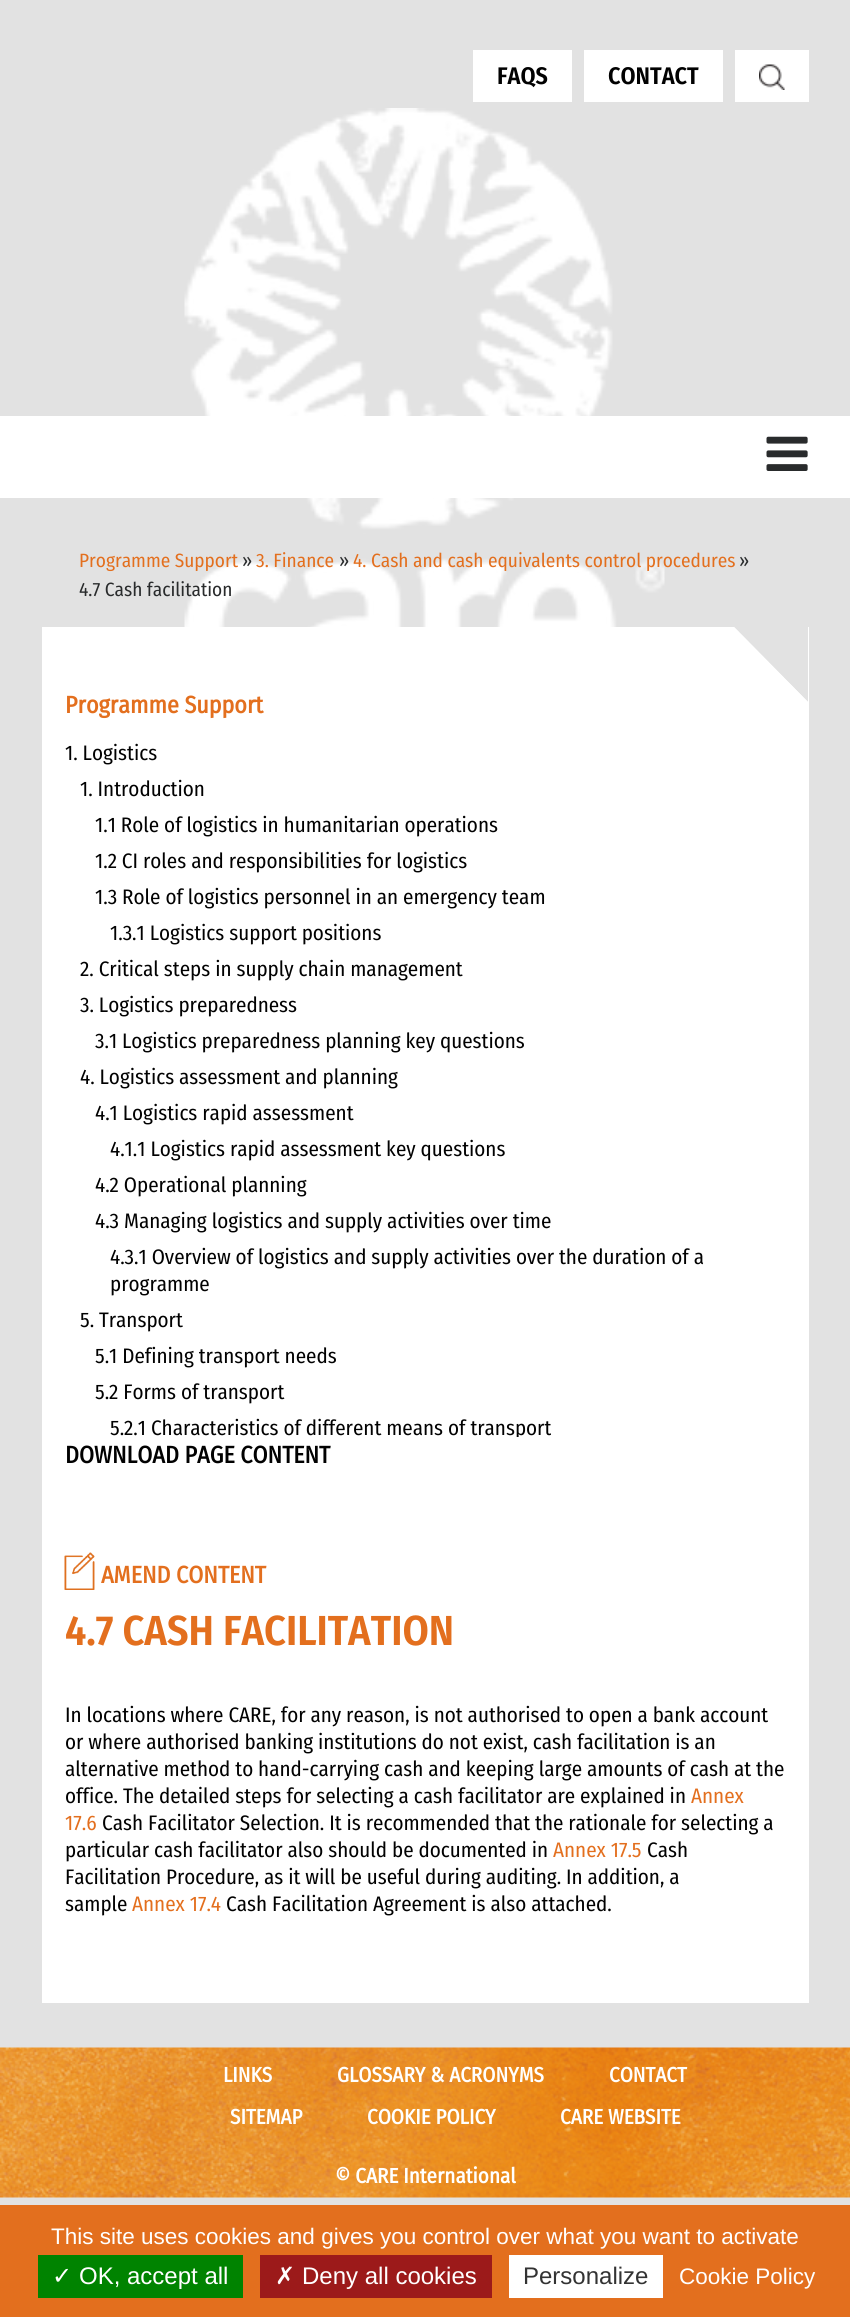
#include <cairo/cairo.h>
#include <math.h>
#include <stddef.h>

static cairo_t *cr;

static void use_color(int r, int g, int b) {
  cairo_set_source_rgb(cr, r / 255.0, g / 255.0, b / 255.0);
}

static void text(double x, double y, const char *s, const char *family, double size, int italic, int bold, int r, int g, int b) {
  cairo_select_font_face(cr, family, italic ? CAIRO_FONT_SLANT_ITALIC : CAIRO_FONT_SLANT_NORMAL,
    bold ? CAIRO_FONT_WEIGHT_BOLD : CAIRO_FONT_WEIGHT_NORMAL);
  cairo_set_font_size(cr, size);
  use_color(r, g, b);
  cairo_move_to(cr, x, y);
  cairo_show_text(cr, s);
}

static void box(double x, double y, double w, double h, int r, int g, int b) {
  use_color(r, g, b);
  cairo_rectangle(cr, x, y, w, h);
  cairo_fill(cr);
}

static void picture(const char *path, double x, double y, double w, double h) {
  cairo_surface_t *image = cairo_image_surface_create_from_png(path);
  cairo_save(cr);
  cairo_set_source_surface(cr, image, x, y);
  cairo_rectangle(cr, x, y, w, h);
  cairo_fill(cr);
  cairo_restore(cr);
  cairo_surface_destroy(image);
}

static void draw(void) {
  use_color(226, 226, 226);
  cairo_paint(cr);
  box(473, 50, 99, 52, 255, 255, 255);
  box(584, 50, 139, 52, 255, 255, 255);
  box(735, 50, 74, 52, 255, 255, 255);
  picture("img_01.png", 759, 64, 26, 26);
  box(0, 416, 850, 82, 255, 255, 255);
  picture("img_02.png", 184, 108, 481, 519);
  picture("img_03.png", 766, 436, 42, 35);
  box(42, 627, 767, 1376, 255, 255, 255);
  use_color(226, 226, 226);
  cairo_new_path(cr);
  cairo_move_to(cr, 808, 627);
  cairo_line_to(cr, 808, 702);
  cairo_line_to(cr, 734, 627);
  cairo_close_path(cr);
  cairo_fill(cr);
  use_color(255, 255, 255);
  cairo_new_path(cr);
  cairo_move_to(cr, 808, 702);
  cairo_line_to(cr, 734, 702);
  cairo_line_to(cr, 734, 627);
  cairo_close_path(cr);
  cairo_fill(cr);
  picture("img_04.png", 64, 1552, 31, 38);
  picture("img_05.png", 0, 2047, 850, 151);
  box(0, 2205, 850, 112, 227, 111, 30);
  box(38, 2255, 205, 43, 0, 131, 0);
  box(260, 2255, 232, 43, 156, 26, 26);
  box(509, 2255, 154, 43, 255, 255, 255);
  text(497, 84, "FAQS", "Fira Sans Condensed SemiBold", 24, 0, 0, 1, 1, 1);
  text(608, 84, "CONTACT", "Fira Sans Condensed SemiBold", 24, 0, 0, 1, 1, 1);
  text(79, 567, "Programme Support", "Fira Sans Condensed", 19.25, 0, 0, 227, 111, 30);
  text(242, 567, "»", "Fira Sans Condensed", 19.25, 0, 0, 41, 43, 44);
  text(256, 567, "3. Finance", "Fira Sans Condensed", 19.25, 0, 0, 227, 111, 30);
  text(339, 567, "»", "Fira Sans Condensed", 19.25, 0, 0, 41, 43, 44);
  text(353, 567, "4. Cash and cash equivalents control procedures", "Fira Sans Condensed", 19.25, 0, 0, 227, 111, 30);
  text(739, 567, "»", "Fira Sans Condensed", 19.25, 0, 0, 41, 43, 44);
  text(79, 596, "4.7 Cash facilitation", "Fira Sans Condensed", 19.25, 0, 0, 41, 43, 44);
  text(65, 713, "Programme Support", "Fira Sans Condensed", 24, 0, 1, 227, 111, 30);
  text(65, 760, "1. Logistics", "Fira Sans Condensed", 21, 0, 0, 1, 1, 1);
  text(80, 796, "1. Introduction", "Fira Sans Condensed", 21, 0, 0, 1, 1, 1);
  text(95, 832, "1.1 Role of logistics in humanitarian operations", "Fira Sans Condensed", 21, 0, 0, 1, 1, 1);
  text(95, 868, "1.2 CI roles and responsibilities for logistics", "Fira Sans Condensed", 21, 0, 0, 1, 1, 1);
  text(95, 904, "1.3 Role of logistics personnel in an emergency team", "Fira Sans Condensed", 21, 0, 0, 1, 1, 1);
  text(110, 940, "1.3.1 Logistics support positions", "Fira Sans Condensed", 21, 0, 0, 1, 1, 1);
  text(80, 976, "2. Critical steps in supply chain management", "Fira Sans Condensed", 21, 0, 0, 1, 1, 1);
  text(80, 1012, "3. Logistics preparedness", "Fira Sans Condensed", 21, 0, 0, 1, 1, 1);
  text(95, 1048, "3.1 Logistics preparedness planning key questions", "Fira Sans Condensed", 21, 0, 0, 1, 1, 1);
  text(80, 1084, "4. Logistics assessment and planning", "Fira Sans Condensed", 21, 0, 0, 1, 1, 1);
  text(95, 1120, "4.1 Logistics rapid assessment", "Fira Sans Condensed", 21, 0, 0, 1, 1, 1);
  text(110, 1156, "4.1.1 Logistics rapid assessment key questions", "Fira Sans Condensed", 21, 0, 0, 1, 1, 1);
  text(95, 1192, "4.2 Operational planning", "Fira Sans Condensed", 21, 0, 0, 1, 1, 1);
  text(95, 1228, "4.3 Managing logistics and supply activities over time", "Fira Sans Condensed", 21, 0, 0, 1, 1, 1);
  text(110, 1264, "4.3.1 Overview of logistics and supply activities over the duration of a", "Fira Sans Condensed", 21, 0, 0, 1, 1, 1);
  text(110, 1291, "programme", "Fira Sans Condensed", 21, 0, 0, 1, 1, 1);
  text(80, 1327, "5. Transport", "Fira Sans Condensed", 21, 0, 0, 1, 1, 1);
  text(95, 1363, "5.1 Defining transport needs", "Fira Sans Condensed", 21, 0, 0, 1, 1, 1);
  text(95, 1399, "5.2 Forms of transport", "Fira Sans Condensed", 21, 0, 0, 1, 1, 1);
  cairo_save(cr);
  cairo_rectangle(cr, 65, 687, 721, 750);
  cairo_clip(cr);
  text(110, 1435, "5.2.1 Characteristics of different means of transport", "Fira Sans Condensed", 21, 0, 0, 1, 1, 1);
  cairo_restore(cr);
  text(65, 1463, "DOWNLOAD PAGE CONTENT", "Fira Sans Condensed", 24, 0, 1, 1, 1, 1);
  text(101, 1583, "AMEND CONTENT", "Fira Sans Condensed", 24, 0, 1, 227, 111, 30);
  text(65, 1645, "4.7 CASH FACILITATION", "Fira Sans Condensed SemiBold", 42, 0, 0, 227, 111, 30);
  text(65, 1722, "In locations where CARE, for any reason, is not authorised to open a bank account", "Fira Sans Condensed", 21, 0, 0, 1, 1, 1);
  text(65, 1749, "or where authorised banking institutions do not exist, cash facilitation is an", "Fira Sans Condensed", 21, 0, 0, 1, 1, 1);
  text(65, 1776, "alternative method to hand-carrying cash and keeping large amounts of cash at the", "Fira Sans Condensed", 21, 0, 0, 1, 1, 1);
  text(65, 1803, "office. The detailed steps for selecting a cash facilitator are explained in", "Fira Sans Condensed", 21, 0, 0, 1, 1, 1);
  text(691, 1803, "Annex", "Fira Sans Condensed", 21, 0, 0, 227, 111, 30);
  text(65, 1830, "17.6", "Fira Sans Condensed", 21, 0, 0, 227, 111, 30);
  text(102, 1830, "Cash Facilitator Selection. It is recommended that the rationale for selecting a", "Fira Sans Condensed", 21, 0, 0, 1, 1, 1);
  text(65, 1857, "particular cash facilitator also should be documented in", "Fira Sans Condensed", 21, 0, 0, 1, 1, 1);
  text(553, 1857, "Annex 17.5", "Fira Sans Condensed", 21, 0, 0, 227, 111, 30);
  text(647, 1857, "Cash", "Fira Sans Condensed", 21, 0, 0, 1, 1, 1);
  text(65, 1884, "Facilitation Procedure, as it will be useful during auditing. In addition, a", "Fira Sans Condensed", 21, 0, 0, 1, 1, 1);
  text(65, 1911, "sample", "Fira Sans Condensed", 21, 0, 0, 1, 1, 1);
  text(132, 1911, "Annex 17.4", "Fira Sans Condensed", 21, 0, 0, 227, 111, 30);
  text(226, 1911, "Cash Facilitation Agreement is also attached.", "Fira Sans Condensed", 21, 0, 0, 1, 1, 1);
  text(223, 2082, "LINKS", "Fira Sans Condensed", 21, 0, 1, 255, 255, 255);
  text(337, 2082, "GLOSSARY & ACRONYMS", "Fira Sans Condensed", 21, 0, 1, 255, 255, 255);
  text(609, 2082, "CONTACT", "Fira Sans Condensed", 21, 0, 1, 255, 255, 255);
  text(230, 2124, "SITEMAP", "Fira Sans Condensed", 21, 0, 1, 255, 255, 255);
  text(367, 2124, "COOKIE POLICY", "Fira Sans Condensed", 21, 0, 1, 255, 255, 255);
  text(560, 2124, "CARE WEBSITE", "Fira Sans Condensed", 21, 0, 1, 255, 255, 255);
  text(335, 2183, "© CARE International", "Fira Sans Condensed", 21, 0, 1, 255, 255, 255);
  text(51, 2244, "This site uses cookies and gives you control over what you want to activate", "Liberation Sans", 22.5, 0, 0, 255, 255, 255);
  text(52, 2284, "✓", "DejaVu Sans", 24, 0, 0, 255, 255, 255);
  text(79, 2284, "OK, accept all", "Liberation Sans", 24, 0, 0, 255, 255, 255);
  text(275, 2284, "✗", "DejaVu Sans", 24, 0, 0, 255, 255, 255);
  text(302, 2284, "Deny all cookies", "Liberation Sans", 24, 0, 0, 255, 255, 255);
  text(523, 2284, "Personalize", "Liberation Sans", 24, 0, 0, 51, 51, 51);
  text(679, 2284, "Cookie Policy", "Liberation Sans", 22.5, 0, 0, 255, 255, 255);
}

int main(void) {
  cairo_surface_t *surface = cairo_image_surface_create(CAIRO_FORMAT_RGB24, 850, 2317);
  cr = cairo_create(surface);
  cairo_font_options_t *options = cairo_font_options_create();
  cairo_font_options_set_hint_metrics(options, CAIRO_HINT_METRICS_OFF);
  cairo_font_options_set_hint_style(options, CAIRO_HINT_STYLE_NONE);
  cairo_set_font_options(cr, options);
  cairo_set_miter_limit(cr, 4);
  draw();
  cairo_surface_write_to_png(surface, "out.png");
  cairo_font_options_destroy(options);
  cairo_destroy(cr);
  cairo_surface_destroy(surface);
  return 0;
}
